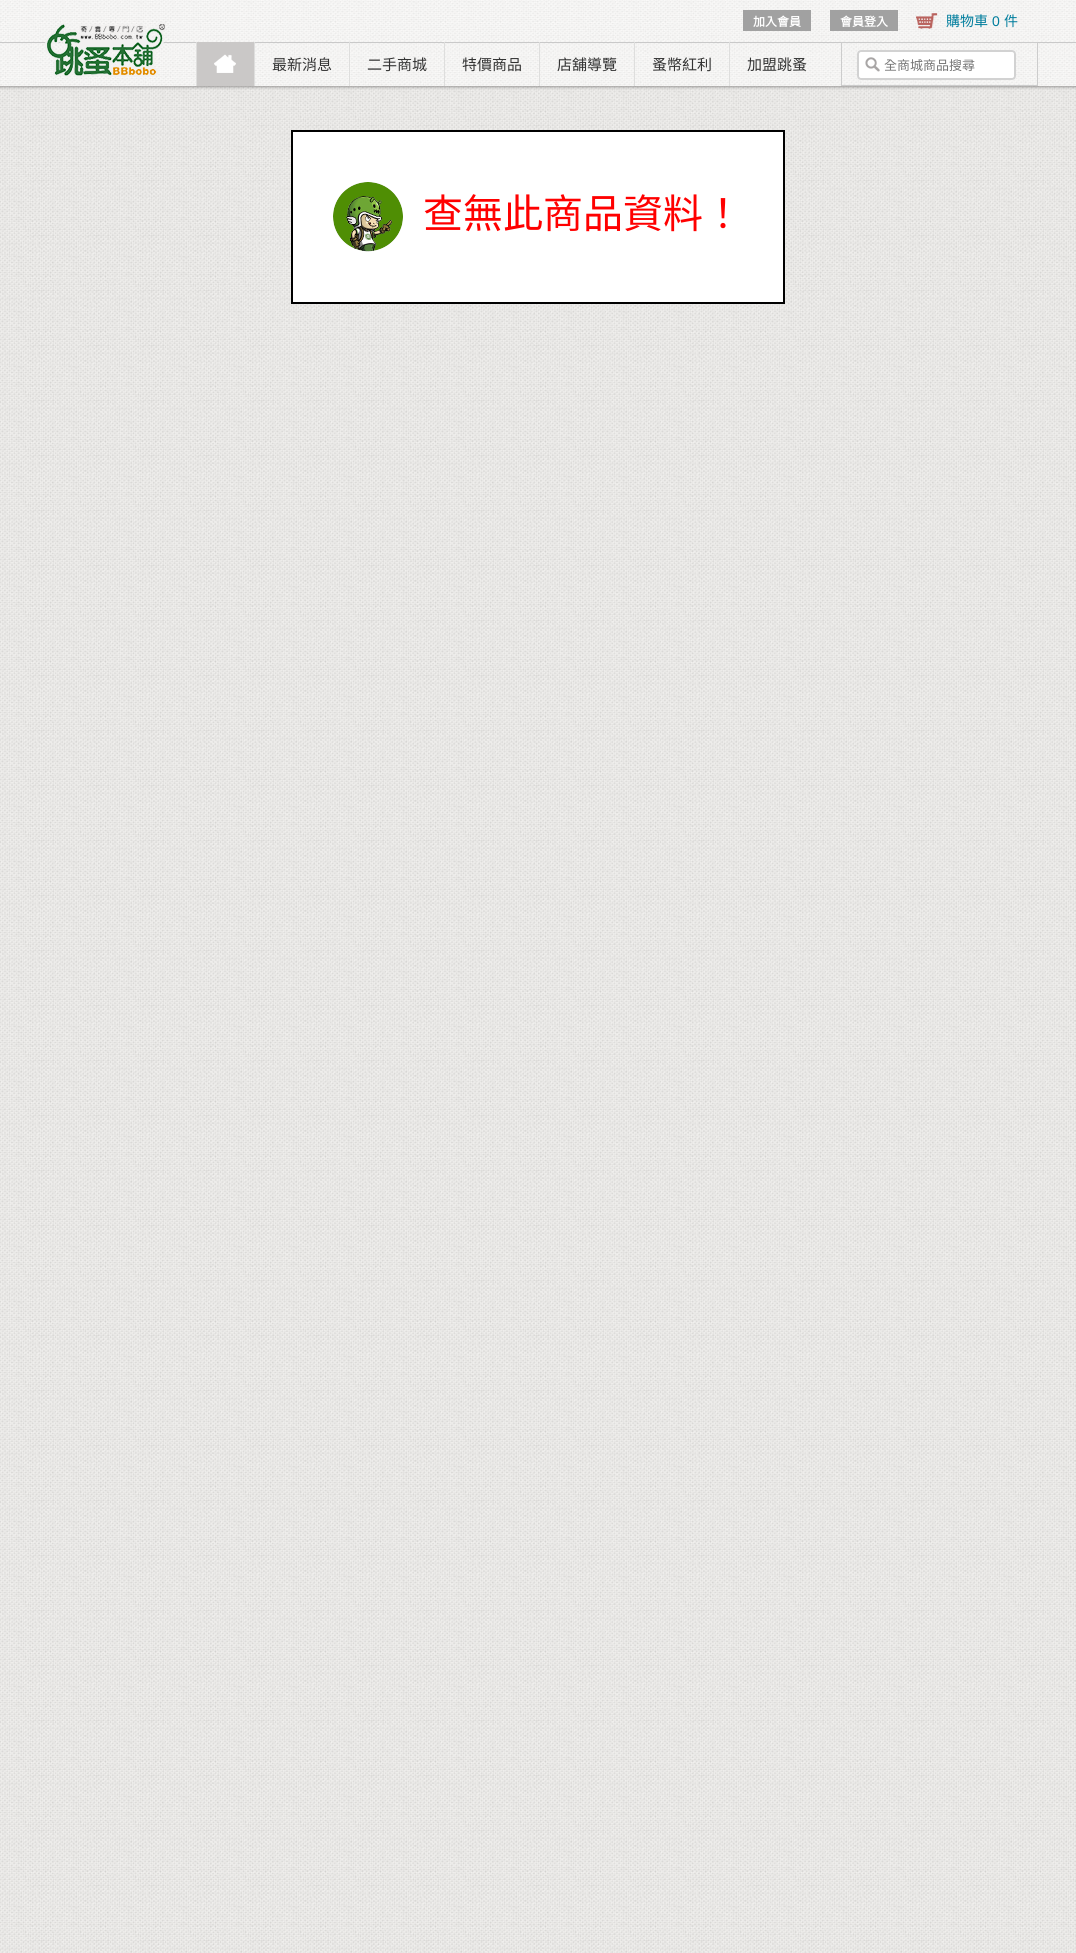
#include <cairo/cairo.h>
#include <math.h>
#include <stddef.h>

static cairo_t *cr;

static void use_color(int r, int g, int b) {
  cairo_set_source_rgb(cr, r / 255.0, g / 255.0, b / 255.0);
}

static void text(double x, double y, const char *s, const char *family, double size, int italic, int bold, int r, int g, int b) {
  cairo_select_font_face(cr, family, italic ? CAIRO_FONT_SLANT_ITALIC : CAIRO_FONT_SLANT_NORMAL,
    bold ? CAIRO_FONT_WEIGHT_BOLD : CAIRO_FONT_WEIGHT_NORMAL);
  cairo_set_font_size(cr, size);
  use_color(r, g, b);
  cairo_move_to(cr, x, y);
  cairo_show_text(cr, s);
}

static void box(double x, double y, double w, double h, int r, int g, int b) {
  use_color(r, g, b);
  cairo_rectangle(cr, x, y, w, h);
  cairo_fill(cr);
}

static void round_rect(double x, double y, double w, double h, double r) {
  cairo_new_sub_path(cr);
  cairo_arc(cr, x + w - r, y + h - r, r, 0, M_PI / 2);
  cairo_arc(cr, x + r, y + h - r, r, M_PI / 2, M_PI);
  cairo_arc(cr, x + r, y + r, r, M_PI, 1.5 * M_PI);
  cairo_arc(cr, x + w - r, y + r, r, 1.5 * M_PI, 2 * M_PI);
  cairo_close_path(cr);
}

static void picture(const char *path, double x, double y, double w, double h) {
  cairo_surface_t *image = cairo_image_surface_create_from_png(path);
  cairo_save(cr);
  cairo_set_source_surface(cr, image, x, y);
  cairo_rectangle(cr, x, y, w, h);
  cairo_fill(cr);
  cairo_restore(cr);
  cairo_surface_destroy(image);
}

static void draw(void) {
  use_color(255, 255, 255);
  cairo_paint(cr);
  picture("img_01.png", 0, 86, 1076, 1867);
  picture("img_02.png", 0, 0, 1076, 90);
  picture("img_03.png", 45, 22, 121, 56);
  picture("img_04.png", 197, 42, 57, 44);
  box(196, 42, 1, 44, 222, 222, 221);
  box(254, 42, 1, 44, 222, 222, 221);
  box(349, 42, 1, 44, 222, 222, 221);
  box(444, 42, 1, 44, 222, 222, 221);
  box(539, 42, 1, 44, 222, 222, 221);
  box(634, 42, 1, 44, 222, 222, 221);
  box(729, 42, 1, 44, 222, 222, 221);
  box(743, 10, 68, 21, 161, 161, 161);
  box(830, 10, 68, 21, 161, 161, 161);
  picture("img_05.png", 916, 13, 22, 16);
  cairo_rectangle(cr, 841.5, 42.5, 196, 43);
  use_color(204, 204, 204);
  cairo_set_line_width(cr, 1);
  cairo_stroke(cr);
  use_color(255, 255, 255);
  round_rect(857, 50, 159, 30, 4);
  cairo_fill(cr);
  picture("img_06.png", 865, 57, 15, 15);
  round_rect(858, 51, 157, 28, 3);
  use_color(210, 210, 210);
  cairo_set_line_width(cr, 2);
  cairo_stroke(cr);
  use_color(255, 255, 255);
  cairo_rectangle(cr, 292, 131, 492, 172);
  cairo_fill_preserve(cr);
  use_color(0, 0, 0);
  cairo_stroke(cr);
  picture("img_07.png", 333, 182, 70, 70);
  text(272, 70, "最新消息", "Noto Sans CJK TC", 15, 0, 0, 51, 51, 51);
  text(367, 70, "二手商城", "Noto Sans CJK TC", 15, 0, 0, 51, 51, 51);
  text(462, 70, "特價商品", "Noto Sans CJK TC", 15, 0, 0, 51, 51, 51);
  text(557, 70, "店舖導覽", "Noto Sans CJK TC", 15, 0, 0, 51, 51, 51);
  text(652, 70, "蚤幣紅利", "Noto Sans CJK TC", 15, 0, 0, 51, 51, 51);
  text(747, 70, "加盟跳蚤", "Noto Sans CJK TC", 15, 0, 0, 51, 51, 51);
  text(753, 26, "加入會員", "Noto Sans CJK TC", 12, 0, 1, 255, 255, 255);
  text(840, 26, "會員登入", "Noto Sans CJK TC", 12, 0, 1, 255, 255, 255);
  text(946, 26, "購物車", "Noto Sans CJK TC", 14, 0, 0, 0, 125, 157);
  text(992, 26, "0", "Liberation Sans", 14, 0, 0, 0, 125, 157);
  text(1004, 26, "件", "Noto Sans CJK TC", 14, 0, 0, 0, 125, 157);
  text(884, 70, "全商城商品搜尋", "Noto Sans CJK TC", 13, 0, 0, 117, 117, 117);
  text(423, 228, "查無此商品資料！", "Noto Sans CJK TC", 40, 0, 0, 255, 0, 0);
}

int main(void) {
  cairo_surface_t *surface = cairo_image_surface_create(CAIRO_FORMAT_RGB24, 1076, 1953);
  cr = cairo_create(surface);
  cairo_font_options_t *options = cairo_font_options_create();
  cairo_font_options_set_hint_metrics(options, CAIRO_HINT_METRICS_OFF);
  cairo_font_options_set_hint_style(options, CAIRO_HINT_STYLE_NONE);
  cairo_set_font_options(cr, options);
  cairo_set_miter_limit(cr, 4);
  draw();
  cairo_surface_write_to_png(surface, "out.png");
  cairo_font_options_destroy(options);
  cairo_destroy(cr);
  cairo_surface_destroy(surface);
  return 0;
}
